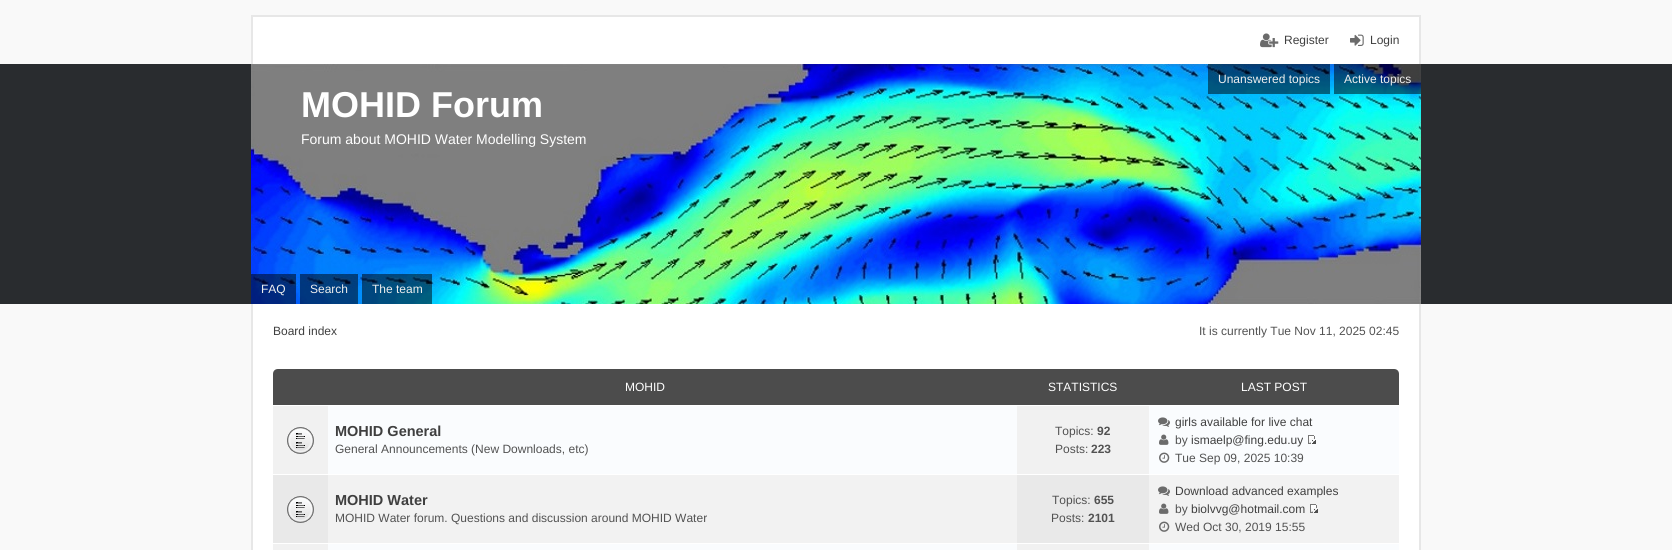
#include <cairo/cairo.h>
#include <math.h>
#include <stddef.h>

static cairo_t *cr;

static void use_color(int r, int g, int b) {
  cairo_set_source_rgb(cr, r / 255.0, g / 255.0, b / 255.0);
}

static void text(double x, double y, const char *s, const char *family, double size, int italic, int bold, int r, int g, int b) {
  cairo_select_font_face(cr, family, italic ? CAIRO_FONT_SLANT_ITALIC : CAIRO_FONT_SLANT_NORMAL,
    bold ? CAIRO_FONT_WEIGHT_BOLD : CAIRO_FONT_WEIGHT_NORMAL);
  cairo_set_font_size(cr, size);
  use_color(r, g, b);
  cairo_move_to(cr, x, y);
  cairo_show_text(cr, s);
}

static void box(double x, double y, double w, double h, int r, int g, int b) {
  use_color(r, g, b);
  cairo_rectangle(cr, x, y, w, h);
  cairo_fill(cr);
}

static void picture(const char *path, double x, double y, double w, double h) {
  cairo_surface_t *image = cairo_image_surface_create_from_png(path);
  cairo_save(cr);
  cairo_set_source_surface(cr, image, x, y);
  cairo_rectangle(cr, x, y, w, h);
  cairo_fill(cr);
  cairo_restore(cr);
  cairo_surface_destroy(image);
}

static void draw(void) {
  use_color(249, 249, 249);
  cairo_paint(cr);
  box(253, 17, 1166, 47, 255, 255, 255);
  box(251, 15, 1170, 2, 231, 231, 231);
  box(1419, 15, 2, 49, 231, 231, 231);
  box(251, 15, 2, 49, 231, 231, 231);
  picture("img_01.png", 1260, 33, 19, 15);
  picture("img_02.png", 1350, 34, 14, 12);
  box(0, 64, 1672, 240, 41, 44, 47);
  picture("img_03.png", 251, 64, 1170, 240);
  cairo_set_source_rgba(cr, 0, 0, 0, 0.5);
  cairo_rectangle(cr, 1208, 64, 122, 30);
  cairo_fill(cr);
  cairo_rectangle(cr, 1334, 64, 87, 30);
  cairo_fill(cr);
  cairo_rectangle(cr, 251, 274, 45, 30);
  cairo_fill(cr);
  cairo_rectangle(cr, 300, 274, 58, 30);
  cairo_fill(cr);
  cairo_rectangle(cr, 362, 274, 70, 30);
  cairo_fill(cr);
  box(253, 304, 1166, 246, 255, 255, 255);
  box(1419, 304, 2, 246, 231, 231, 231);
  box(251, 304, 2, 246, 231, 231, 231);
  use_color(76, 76, 76);
  cairo_new_path(cr);
  cairo_move_to(cr, 278, 369);
  cairo_line_to(cr, 1394, 369);
  cairo_curve_to(cr, 1397, 369, 1399, 371, 1399, 374);
  cairo_line_to(cr, 1399, 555);
  cairo_line_to(cr, 273, 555);
  cairo_line_to(cr, 273, 374);
  cairo_curve_to(cr, 273, 371, 275, 369, 278, 369);
  cairo_close_path(cr);
  cairo_fill(cr);
  box(328, 406, 1071, 144, 250, 252, 254);
  box(273, 405, 1126, 1, 255, 255, 255);
  box(273, 406, 55, 68, 241, 241, 241);
  picture("img_04.png", 287, 427, 27, 27);
  box(1017, 406, 132, 68, 241, 241, 241);
  picture("img_05.png", 1158, 417, 12, 10);
  picture("img_06.png", 1159, 434, 10, 11);
  picture("img_07.png", 1308, 435, 8, 9);
  picture("img_08.png", 1159, 452, 11, 11);
  box(328, 475, 1071, 68, 242, 242, 242);
  box(273, 474, 1126, 1, 255, 255, 255);
  box(273, 475, 55, 68, 233, 233, 233);
  picture("img_09.png", 287, 496, 27, 27);
  box(1017, 475, 132, 68, 233, 233, 233);
  picture("img_10.png", 1158, 486, 12, 10);
  picture("img_11.png", 1159, 503, 10, 11);
  picture("img_12.png", 1310, 504, 8, 9);
  picture("img_13.png", 1159, 521, 11, 11);
  box(273, 543, 1126, 1, 255, 255, 255);
  box(273, 544, 55, 6, 241, 241, 241);
  box(1017, 544, 132, 6, 241, 241, 241);
  text(1284, 44, "Register", "Liberation Sans", 12, 0, 0, 63, 63, 63);
  text(1370, 44, "Login", "Liberation Sans", 12, 0, 0, 63, 63, 63);
  text(1218, 83, "Unanswered topics", "Liberation Sans", 12, 0, 0, 238, 238, 238);
  text(1344, 83, "Active topics", "Liberation Sans", 12, 0, 0, 238, 238, 238);
  text(261, 293, "FAQ", "Liberation Sans", 12, 0, 0, 238, 238, 238);
  text(310, 293, "Search", "Liberation Sans", 12, 0, 0, 238, 238, 238);
  text(372, 293, "The team", "Liberation Sans", 12, 0, 0, 238, 238, 238);
  text(301, 117, "MOHID Forum", "Liberation Sans", 36, 0, 1, 255, 255, 255);
  text(301, 144, "Forum about MOHID Water Modelling System", "Liberation Sans", 14, 0, 0, 255, 255, 255);
  text(273, 335, "Board index", "Liberation Sans", 12, 0, 0, 63, 63, 63);
  text(1199, 335, "It is currently Tue Nov 11, 2025 02:45", "Liberation Sans", 12, 0, 0, 82, 82, 82);
  text(625, 391, "MOHID", "Liberation Sans", 12, 0, 0, 255, 255, 255);
  text(1048, 391, "STATISTICS", "Liberation Sans", 12, 0, 0, 255, 255, 255);
  text(1241, 391, "LAST POST", "Liberation Sans", 12, 0, 0, 255, 255, 255);
  text(335, 436, "MOHID General", "Liberation Sans", 14.5, 0, 1, 63, 63, 63);
  text(335, 453, "General Announcements (New Downloads, etc)", "Liberation Sans", 12, 0, 0, 82, 82, 82);
  text(1055, 435, "Topics:", "Liberation Sans", 12, 0, 0, 82, 82, 82);
  text(1097, 435, "92", "Liberation Sans", 12, 0, 1, 82, 82, 82);
  text(1055, 453, "Posts:", "Liberation Sans", 12, 0, 0, 82, 82, 82);
  text(1091, 453, "223", "Liberation Sans", 12, 0, 1, 82, 82, 82);
  text(1175, 426, "girls available for live chat", "Liberation Sans", 12, 0, 0, 63, 63, 63);
  text(1175, 444, "by", "Liberation Sans", 12, 0, 0, 82, 82, 82);
  text(1191, 444, "ismaelp@fing.edu.uy", "Liberation Sans", 12, 0, 0, 63, 63, 63);
  text(1175, 462, "Tue Sep 09, 2025 10:39", "Liberation Sans", 12, 0, 0, 82, 82, 82);
  text(335, 505, "MOHID Water", "Liberation Sans", 14.5, 0, 1, 63, 63, 63);
  text(335, 522, "MOHID Water forum. Questions and discussion around MOHID Water", "Liberation Sans", 12, 0, 0, 82, 82, 82);
  text(1052, 504, "Topics:", "Liberation Sans", 12, 0, 0, 82, 82, 82);
  text(1094, 504, "655", "Liberation Sans", 12, 0, 1, 82, 82, 82);
  text(1051, 522, "Posts:", "Liberation Sans", 12, 0, 0, 82, 82, 82);
  text(1088, 522, "2101", "Liberation Sans", 12, 0, 1, 82, 82, 82);
  text(1175, 495, "Download advanced examples", "Liberation Sans", 12, 0, 0, 63, 63, 63);
  text(1175, 513, "by", "Liberation Sans", 12, 0, 0, 82, 82, 82);
  text(1191, 513, "biolvvg@hotmail.com", "Liberation Sans", 12, 0, 0, 63, 63, 63);
  text(1175, 531, "Wed Oct 30, 2019 15:55", "Liberation Sans", 12, 0, 0, 82, 82, 82);
}

int main(void) {
  cairo_surface_t *surface = cairo_image_surface_create(CAIRO_FORMAT_RGB24, 1672, 550);
  cr = cairo_create(surface);
  cairo_font_options_t *options = cairo_font_options_create();
  cairo_font_options_set_hint_metrics(options, CAIRO_HINT_METRICS_OFF);
  cairo_font_options_set_hint_style(options, CAIRO_HINT_STYLE_NONE);
  cairo_set_font_options(cr, options);
  cairo_set_miter_limit(cr, 4);
  draw();
  cairo_surface_write_to_png(surface, "out.png");
  cairo_font_options_destroy(options);
  cairo_destroy(cr);
  cairo_surface_destroy(surface);
  return 0;
}
